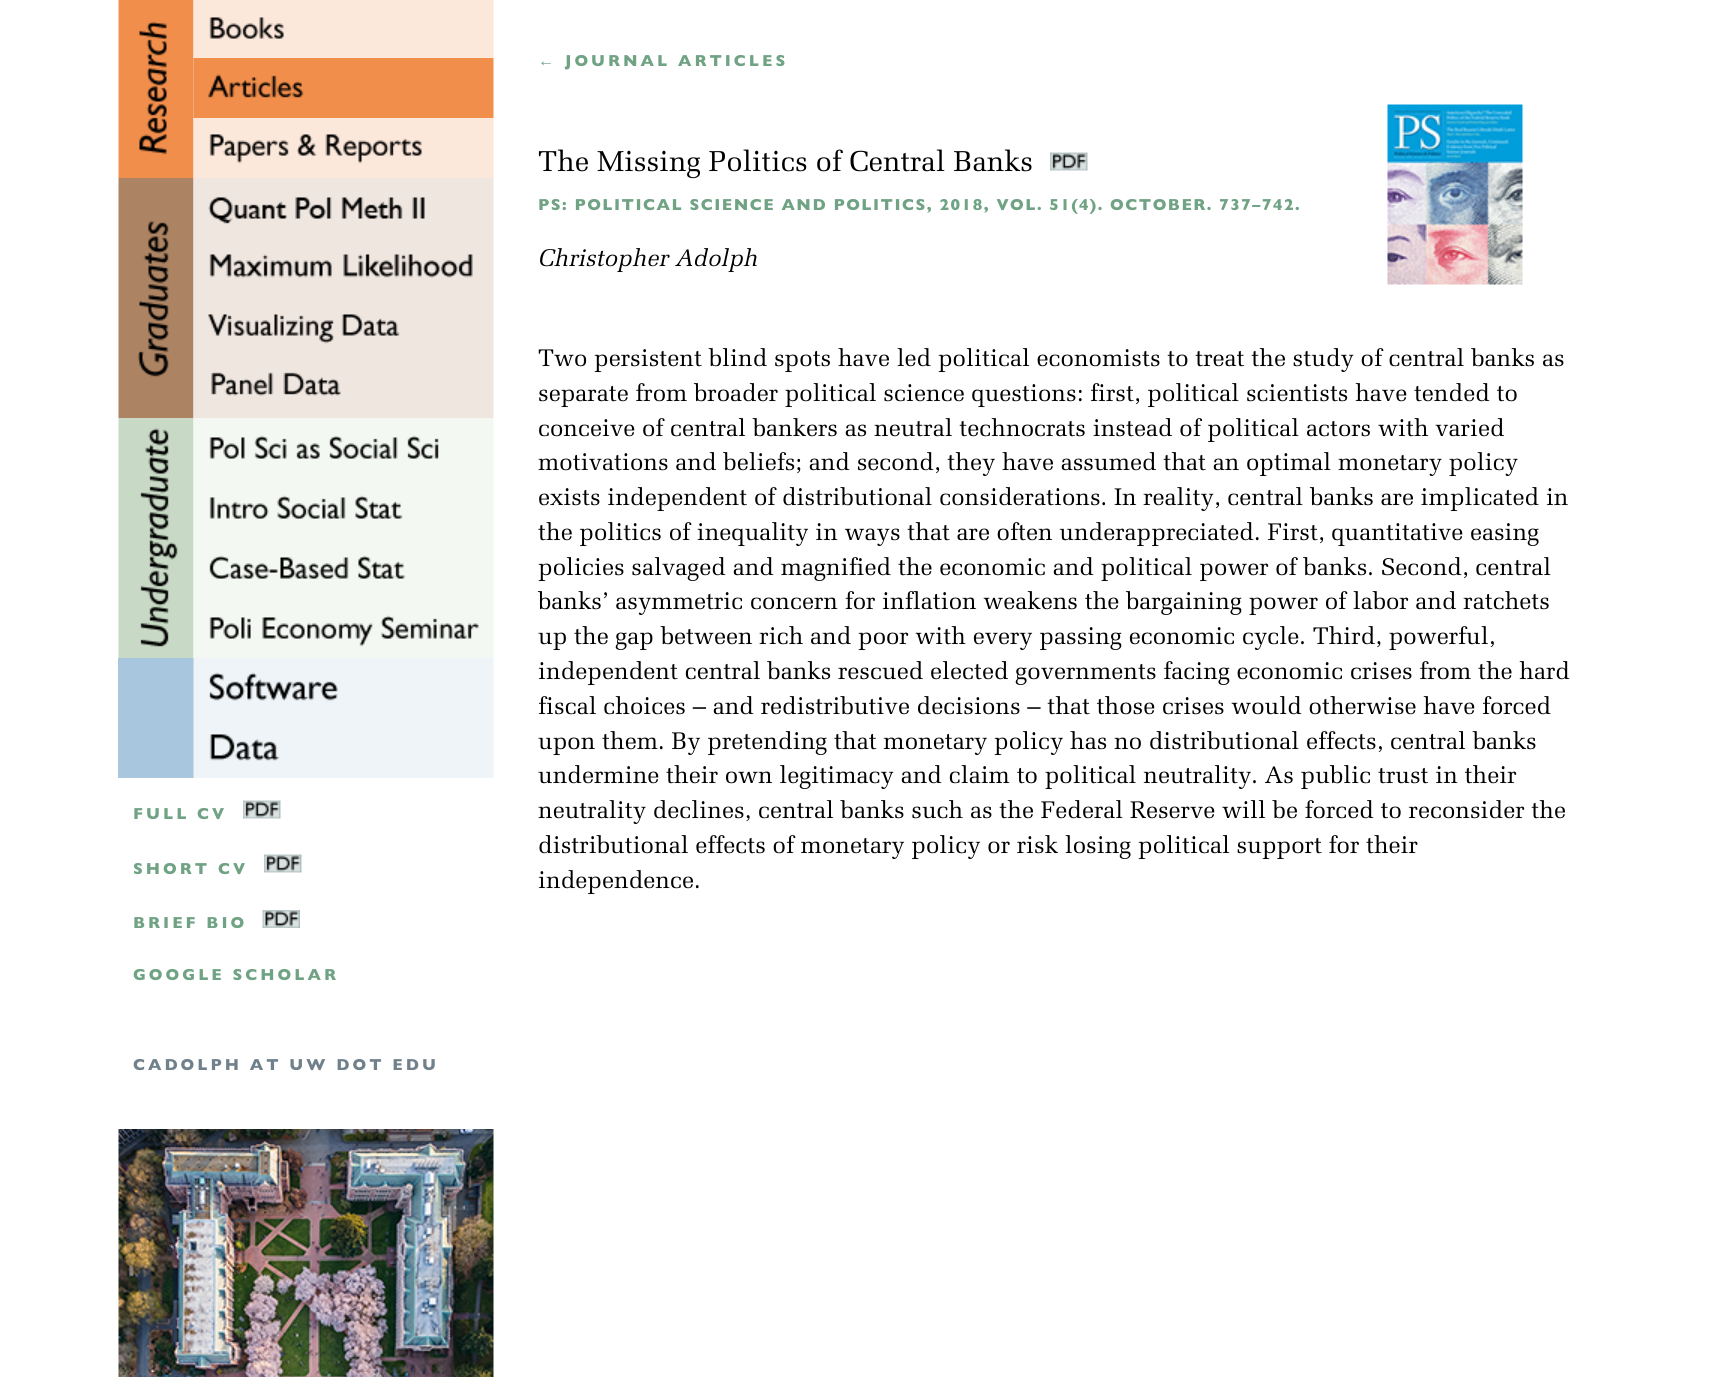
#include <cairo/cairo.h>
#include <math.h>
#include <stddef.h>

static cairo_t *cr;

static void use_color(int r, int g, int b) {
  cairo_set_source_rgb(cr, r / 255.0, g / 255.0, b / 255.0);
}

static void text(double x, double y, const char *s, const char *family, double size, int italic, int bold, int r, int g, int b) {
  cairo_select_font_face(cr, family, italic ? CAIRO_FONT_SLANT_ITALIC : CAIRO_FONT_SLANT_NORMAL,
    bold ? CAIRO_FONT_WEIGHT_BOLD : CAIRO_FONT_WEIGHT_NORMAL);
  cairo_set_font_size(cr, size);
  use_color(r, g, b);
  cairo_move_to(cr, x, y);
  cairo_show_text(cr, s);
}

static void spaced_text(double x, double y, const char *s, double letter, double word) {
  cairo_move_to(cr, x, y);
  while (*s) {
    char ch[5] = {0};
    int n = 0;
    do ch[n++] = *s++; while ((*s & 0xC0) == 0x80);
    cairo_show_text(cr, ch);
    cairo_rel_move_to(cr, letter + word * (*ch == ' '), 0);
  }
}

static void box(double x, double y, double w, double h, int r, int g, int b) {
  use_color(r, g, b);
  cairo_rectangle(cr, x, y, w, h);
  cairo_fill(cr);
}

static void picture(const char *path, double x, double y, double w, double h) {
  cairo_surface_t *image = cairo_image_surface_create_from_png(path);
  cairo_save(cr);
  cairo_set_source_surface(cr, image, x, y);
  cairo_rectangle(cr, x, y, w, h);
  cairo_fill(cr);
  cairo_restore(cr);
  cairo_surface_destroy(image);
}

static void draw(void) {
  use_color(255, 255, 255);
  cairo_paint(cr);
  picture("img_01.png", 1050, 152, 38, 19);
  picture("img_02.png", 1387, 104, 136, 181);
  picture("img_03.png", 118, 0, 76, 178);
  picture("img_04.png", 118, 178, 76, 240);
  picture("img_05.png", 118, 418, 76, 240);
  box(118, 658, 76, 120, 168, 198, 222);
  picture("img_06.png", 193, 0, 301, 58);
  picture("img_07.png", 193, 58, 301, 60);
  picture("img_08.png", 193, 118, 301, 60);
  picture("img_09.png", 193, 178, 301, 60);
  picture("img_10.png", 193, 238, 301, 60);
  picture("img_11.png", 193, 298, 301, 60);
  picture("img_12.png", 193, 358, 301, 60);
  picture("img_13.png", 193, 418, 301, 60);
  picture("img_14.png", 193, 478, 301, 60);
  picture("img_15.png", 193, 538, 301, 60);
  picture("img_16.png", 193, 598, 301, 60);
  picture("img_17.png", 193, 658, 301, 60);
  picture("img_18.png", 193, 718, 301, 60);
  picture("img_19.png", 243, 800, 38, 19);
  picture("img_20.png", 264, 854, 38, 19);
  picture("img_21.png", 262, 910, 38, 18);
  picture("img_22.png", 118, 1129, 376, 248);
  cairo_select_font_face(cr, "Liberation Sans", CAIRO_FONT_SLANT_NORMAL, CAIRO_FONT_WEIGHT_NORMAL);
  cairo_set_font_size(cr, 16.1);
  use_color(112, 162, 132);
  spaced_text(538, 66, "←", 3, 0);
  cairo_select_font_face(cr, "Gill Sans", CAIRO_FONT_SLANT_NORMAL, CAIRO_FONT_WEIGHT_BOLD);
  spaced_text(565, 66, "JOURNAL ARTICLES", 3, 0);
  text(538, 171, "The Missing Politics of Central Banks", "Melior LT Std", 28.75, 0, 0, 0, 0, 0);
  cairo_select_font_face(cr, "Gill Sans", CAIRO_FONT_SLANT_NORMAL, CAIRO_FONT_WEIGHT_BOLD);
  cairo_set_font_size(cr, 16.1);
  use_color(112, 162, 132);
  spaced_text(538, 210, "PS: POLITICAL SCIENCE AND POLITICS, 2018, VOL. 51(4). OCTOBER. 737–742.", 1.5, 0);
  text(538, 266, "Christopher Adolph", "Melior LT Std", 24, 1, 0, 0, 0, 0);
  text(538, 366, "Two persistent blind spots have led political economists to treat the study of central banks as", "Melior LT Std", 24, 0, 0, 0, 0, 0);
  text(538, 401, "separate from broader political science questions: first, political scientists have tended to", "Melior LT Std", 24, 0, 0, 0, 0, 0);
  text(538, 436, "conceive of central bankers as neutral technocrats instead of political actors with varied", "Melior LT Std", 24, 0, 0, 0, 0, 0);
  text(538, 470, "motivations and beliefs; and second, they have assumed that an optimal monetary policy", "Melior LT Std", 24, 0, 0, 0, 0, 0);
  text(538, 505, "exists independent of distributional considerations. In reality, central banks are implicated in", "Melior LT Std", 24, 0, 0, 0, 0, 0);
  text(538, 540, "the politics of inequality in ways that are often underappreciated. First, quantitative easing", "Melior LT Std", 24, 0, 0, 0, 0, 0);
  text(538, 575, "policies salvaged and magnified the economic and political power of banks. Second, central", "Melior LT Std", 24, 0, 0, 0, 0, 0);
  text(538, 609, "banks’ asymmetric concern for inflation weakens the bargaining power of labor and ratchets", "Melior LT Std", 24, 0, 0, 0, 0, 0);
  text(538, 644, "up the gap between rich and poor with every passing economic cycle. Third, powerful,", "Melior LT Std", 24, 0, 0, 0, 0, 0);
  text(538, 679, "independent central banks rescued elected governments facing economic crises from the hard", "Melior LT Std", 24, 0, 0, 0, 0, 0);
  text(538, 714, "fiscal choices – and redistributive decisions – that those crises would otherwise have forced", "Melior LT Std", 24, 0, 0, 0, 0, 0);
  text(538, 749, "upon them. By pretending that monetary policy has no distributional effects, central banks", "Melior LT Std", 24, 0, 0, 0, 0, 0);
  text(538, 783, "undermine their own legitimacy and claim to political neutrality. As public trust in their", "Melior LT Std", 24, 0, 0, 0, 0, 0);
  text(538, 818, "neutrality declines, central banks such as the Federal Reserve will be forced to reconsider the", "Melior LT Std", 24, 0, 0, 0, 0, 0);
  text(538, 853, "distributional effects of monetary policy or risk losing political support for their", "Melior LT Std", 24, 0, 0, 0, 0, 0);
  text(538, 888, "independence.", "Melior LT Std", 24, 0, 0, 0, 0, 0);
  cairo_select_font_face(cr, "Gill Sans", CAIRO_FONT_SLANT_NORMAL, CAIRO_FONT_WEIGHT_BOLD);
  cairo_set_font_size(cr, 16.1);
  use_color(112, 162, 132);
  spaced_text(133, 819, "FULL CV", 3, 0);
  spaced_text(133, 874, "SHORT CV", 3, 0);
  spaced_text(133, 928, "BRIEF BIO", 3, 0);
  spaced_text(133, 980, "GOOGLE SCHOLAR", 3, 0);
  use_color(113, 129, 139);
  spaced_text(133, 1070, "CADOLPH AT UW DOT EDU", 3, 0);
}

int main(void) {
  cairo_surface_t *surface = cairo_image_surface_create(CAIRO_FORMAT_RGB24, 1720, 1377);
  cr = cairo_create(surface);
  cairo_font_options_t *options = cairo_font_options_create();
  cairo_font_options_set_hint_metrics(options, CAIRO_HINT_METRICS_OFF);
  cairo_font_options_set_hint_style(options, CAIRO_HINT_STYLE_NONE);
  cairo_set_font_options(cr, options);
  cairo_set_miter_limit(cr, 4);
  draw();
  cairo_surface_write_to_png(surface, "out.png");
  cairo_font_options_destroy(options);
  cairo_destroy(cr);
  cairo_surface_destroy(surface);
  return 0;
}
